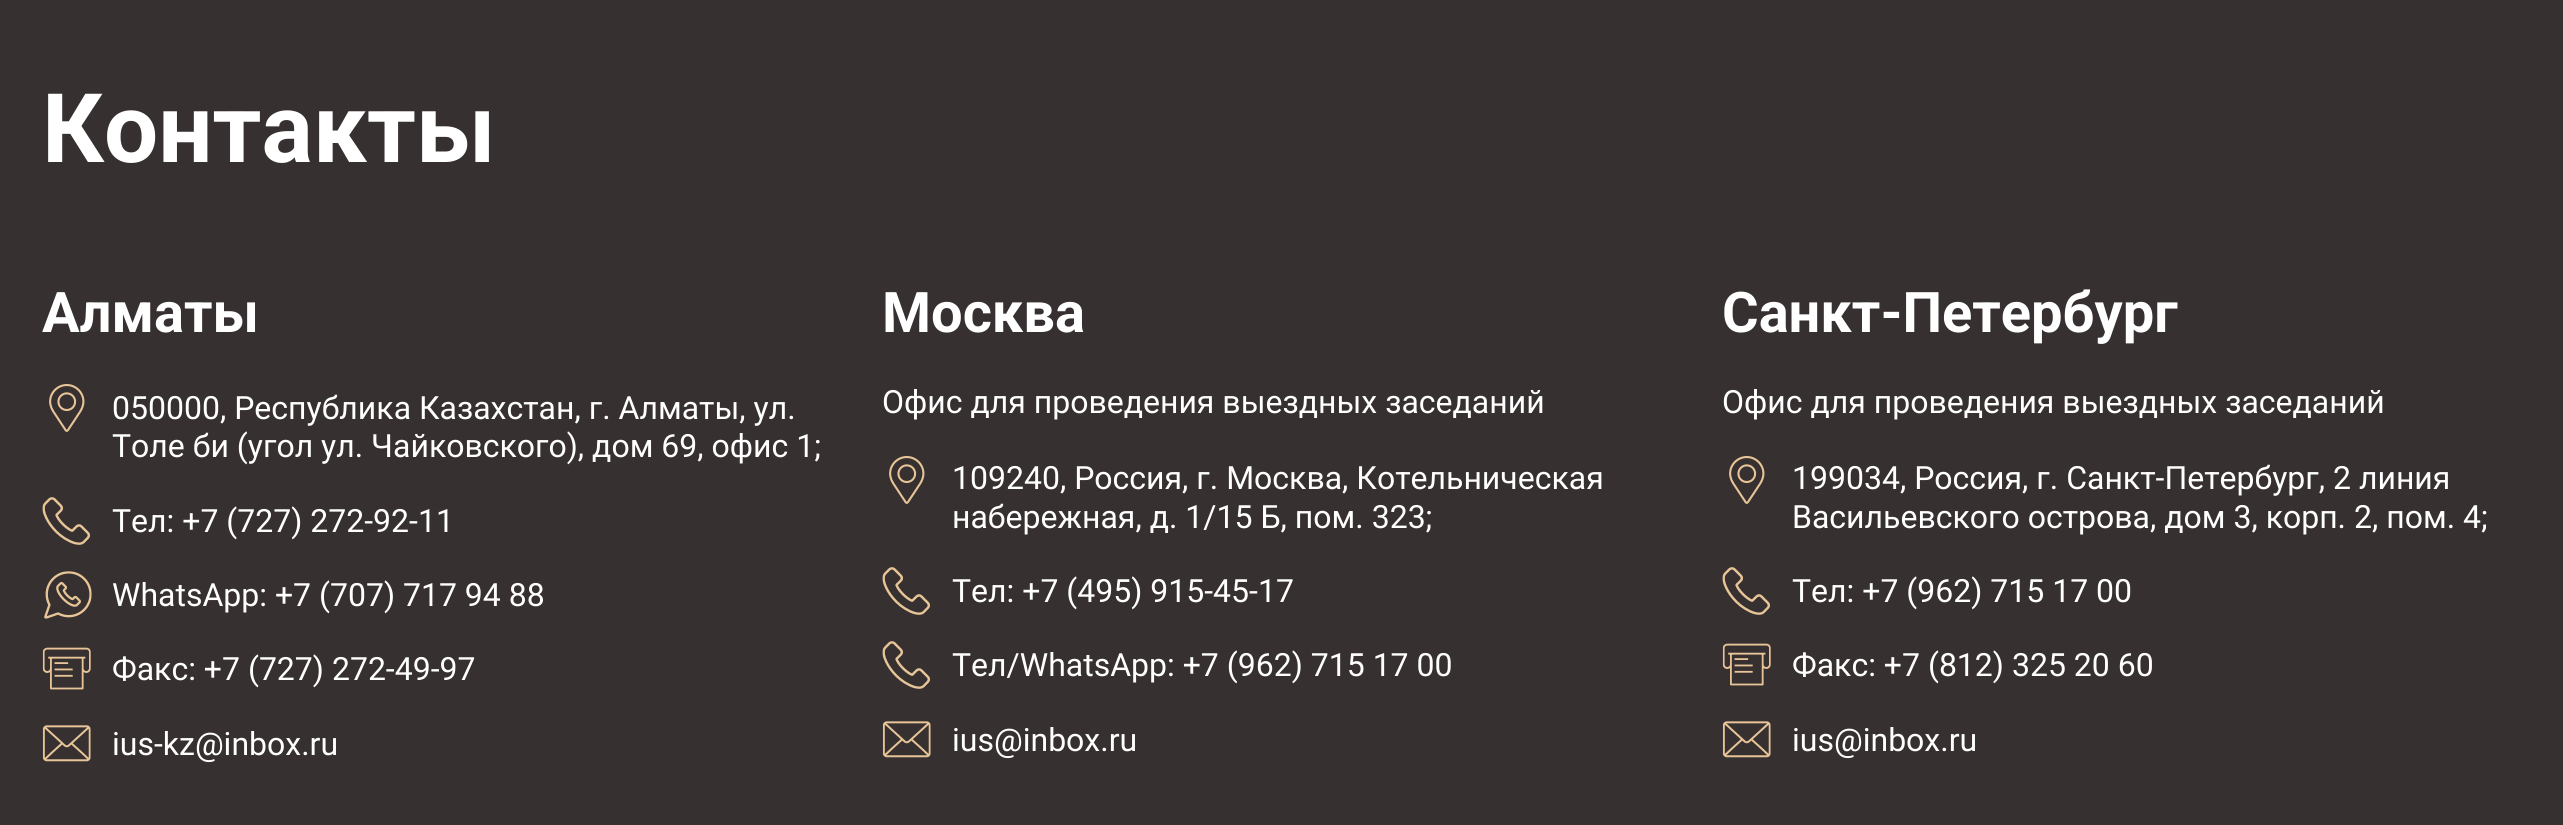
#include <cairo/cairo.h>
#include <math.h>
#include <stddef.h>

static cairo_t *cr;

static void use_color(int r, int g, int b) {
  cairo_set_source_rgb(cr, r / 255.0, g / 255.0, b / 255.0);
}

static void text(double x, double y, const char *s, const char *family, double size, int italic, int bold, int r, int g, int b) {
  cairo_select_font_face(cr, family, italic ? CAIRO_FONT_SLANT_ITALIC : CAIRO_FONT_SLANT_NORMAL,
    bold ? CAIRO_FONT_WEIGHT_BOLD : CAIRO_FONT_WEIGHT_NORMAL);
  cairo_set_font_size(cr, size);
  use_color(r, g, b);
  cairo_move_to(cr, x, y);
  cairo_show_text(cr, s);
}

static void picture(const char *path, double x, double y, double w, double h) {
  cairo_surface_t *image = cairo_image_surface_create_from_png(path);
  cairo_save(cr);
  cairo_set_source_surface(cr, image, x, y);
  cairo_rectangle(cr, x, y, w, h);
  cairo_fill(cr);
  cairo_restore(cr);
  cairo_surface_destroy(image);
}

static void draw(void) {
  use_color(55, 48, 48);
  cairo_paint(cr);
  picture("img_01.png", 49, 384, 36, 48);
  picture("img_02.png", 42, 497, 48, 48);
  picture("img_03.png", 44, 571, 48, 48);
  picture("img_04.png", 42, 647, 49, 43);
  picture("img_05.png", 42, 725, 49, 37);
  picture("img_01.png", 889, 456, 36, 48);
  picture("img_02.png", 882, 567, 48, 48);
  picture("img_02.png", 882, 641, 48, 48);
  picture("img_05.png", 882, 721, 49, 37);
  picture("img_01.png", 1729, 456, 36, 48);
  picture("img_02.png", 1722, 567, 48, 48);
  picture("img_04.png", 1722, 643, 49, 43);
  picture("img_05.png", 1722, 721, 49, 37);
  text(42, 162, "Контакты", "Roboto", 96, 0, 1, 255, 255, 255);
  text(42, 332, "Алматы", "Roboto", 56, 0, 1, 255, 255, 255);
  text(112, 419, "050000, Республика Казахстан, г. Алматы, ул.", "Roboto", 32, 0, 0, 255, 255, 255);
  text(112, 457, "Толе би (угол ул. Чайковского), дом 69, офис 1;", "Roboto", 32, 0, 0, 255, 255, 255);
  text(112, 532, "Тел: +7 (727) 272-92-11", "Roboto", 32, 0, 0, 255, 255, 255);
  text(112, 606, "WhatsApp: +7 (707) 717 94 88", "Roboto", 32, 0, 0, 255, 255, 255);
  text(112, 680, "Факс: +7 (727) 272-49-97", "Roboto", 32, 0, 0, 255, 255, 255);
  text(112, 755, "ius-kz@inbox.ru", "Roboto", 32, 0, 0, 255, 255, 255);
  text(882, 332, "Москва", "Roboto", 56, 0, 1, 255, 255, 255);
  text(882, 413, "Офис для проведения выездных заседаний", "Roboto", 32, 0, 0, 255, 255, 255);
  text(952, 489, "109240, Россия, г. Москва, Котельническая", "Roboto", 32, 0, 0, 255, 255, 255);
  text(952, 528, "набережная, д. 1/15 Б, пом. 323;", "Roboto", 32, 0, 0, 255, 255, 255);
  text(952, 602, "Тел: +7 (495) 915-45-17", "Roboto", 32, 0, 0, 255, 255, 255);
  text(952, 676, "Тел/WhatsApp: +7 (962) 715 17 00", "Roboto", 32, 0, 0, 255, 255, 255);
  text(952, 751, "ius@inbox.ru", "Roboto", 32, 0, 0, 255, 255, 255);
  text(1722, 332, "Санкт-Петербург", "Roboto", 56, 0, 1, 255, 255, 255);
  text(1722, 413, "Офис для проведения выездных заседаний", "Roboto", 32, 0, 0, 255, 255, 255);
  text(1792, 489, "199034, Россия, г. Санкт-Петербург, 2 линия", "Roboto", 32, 0, 0, 255, 255, 255);
  text(1792, 528, "Васильевского острова, дом 3, корп. 2, пом. 4;", "Roboto", 32, 0, 0, 255, 255, 255);
  text(1792, 602, "Тел: +7 (962) 715 17 00", "Roboto", 32, 0, 0, 255, 255, 255);
  text(1792, 676, "Факс: +7 (812) 325 20 60", "Roboto", 32, 0, 0, 255, 255, 255);
  text(1792, 751, "ius@inbox.ru", "Roboto", 32, 0, 0, 255, 255, 255);
}

int main(void) {
  cairo_surface_t *surface = cairo_image_surface_create(CAIRO_FORMAT_RGB24, 2563, 825);
  cr = cairo_create(surface);
  cairo_font_options_t *options = cairo_font_options_create();
  cairo_font_options_set_hint_metrics(options, CAIRO_HINT_METRICS_OFF);
  cairo_font_options_set_hint_style(options, CAIRO_HINT_STYLE_NONE);
  cairo_set_font_options(cr, options);
  cairo_set_miter_limit(cr, 4);
  draw();
  cairo_surface_write_to_png(surface, "out.png");
  cairo_font_options_destroy(options);
  cairo_destroy(cr);
  cairo_surface_destroy(surface);
  return 0;
}
